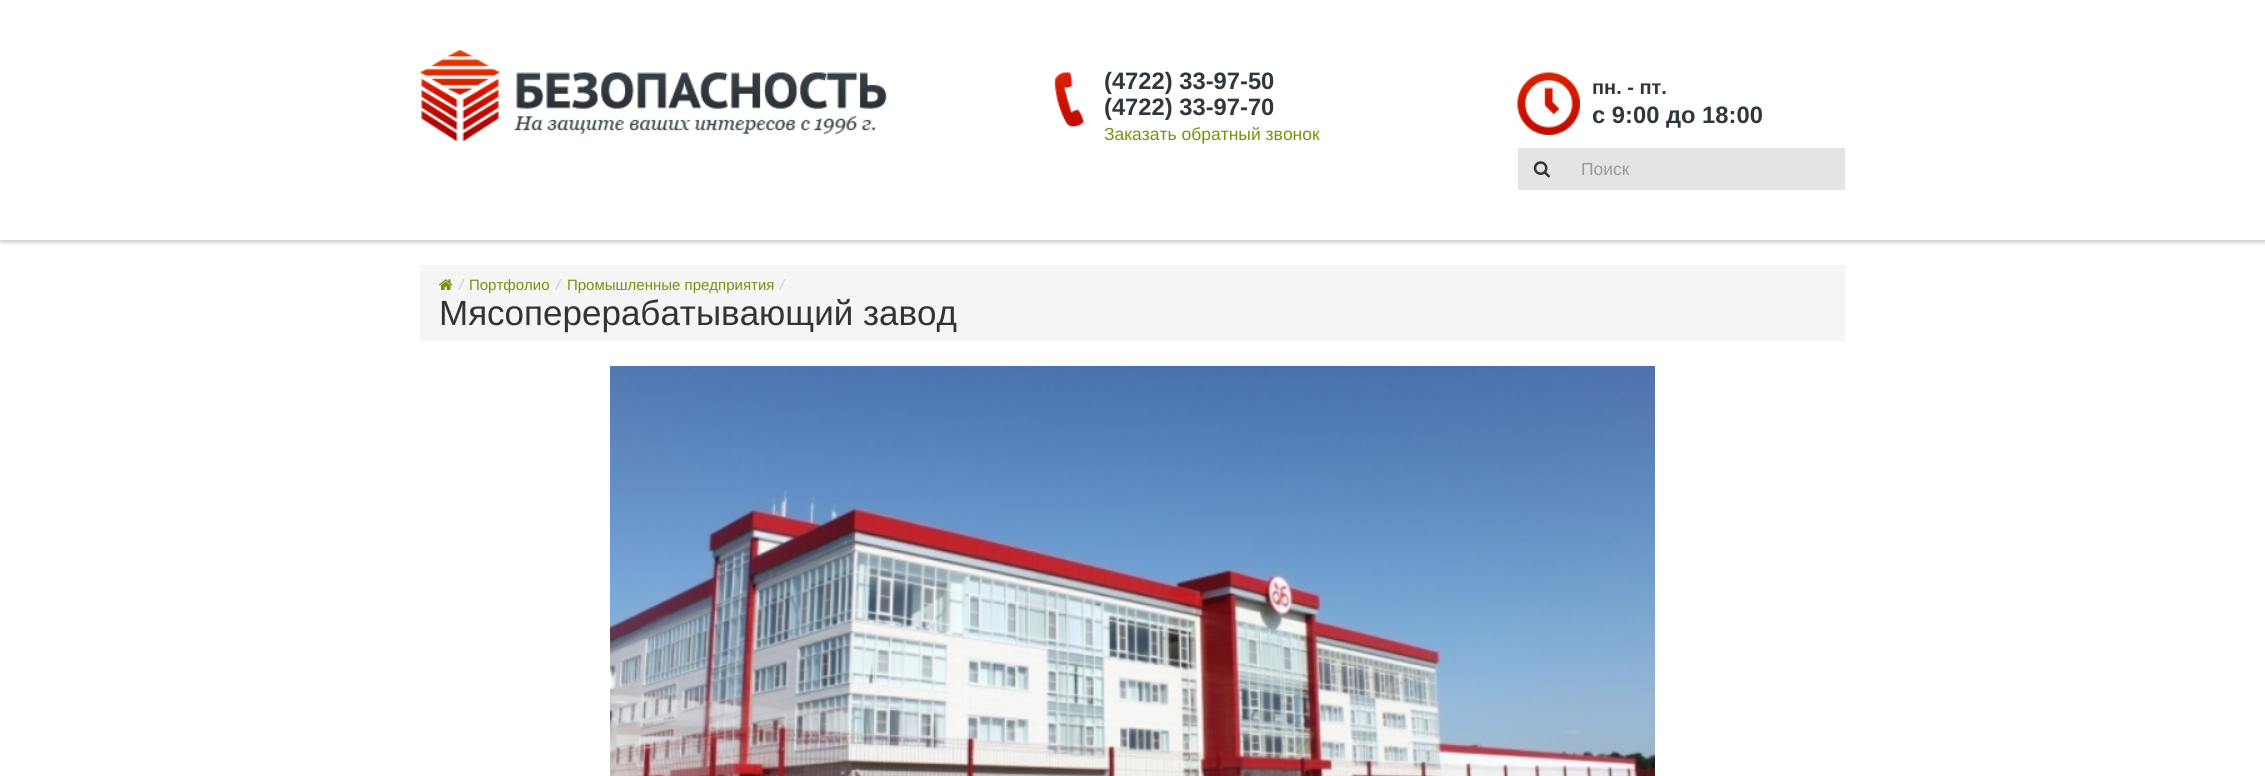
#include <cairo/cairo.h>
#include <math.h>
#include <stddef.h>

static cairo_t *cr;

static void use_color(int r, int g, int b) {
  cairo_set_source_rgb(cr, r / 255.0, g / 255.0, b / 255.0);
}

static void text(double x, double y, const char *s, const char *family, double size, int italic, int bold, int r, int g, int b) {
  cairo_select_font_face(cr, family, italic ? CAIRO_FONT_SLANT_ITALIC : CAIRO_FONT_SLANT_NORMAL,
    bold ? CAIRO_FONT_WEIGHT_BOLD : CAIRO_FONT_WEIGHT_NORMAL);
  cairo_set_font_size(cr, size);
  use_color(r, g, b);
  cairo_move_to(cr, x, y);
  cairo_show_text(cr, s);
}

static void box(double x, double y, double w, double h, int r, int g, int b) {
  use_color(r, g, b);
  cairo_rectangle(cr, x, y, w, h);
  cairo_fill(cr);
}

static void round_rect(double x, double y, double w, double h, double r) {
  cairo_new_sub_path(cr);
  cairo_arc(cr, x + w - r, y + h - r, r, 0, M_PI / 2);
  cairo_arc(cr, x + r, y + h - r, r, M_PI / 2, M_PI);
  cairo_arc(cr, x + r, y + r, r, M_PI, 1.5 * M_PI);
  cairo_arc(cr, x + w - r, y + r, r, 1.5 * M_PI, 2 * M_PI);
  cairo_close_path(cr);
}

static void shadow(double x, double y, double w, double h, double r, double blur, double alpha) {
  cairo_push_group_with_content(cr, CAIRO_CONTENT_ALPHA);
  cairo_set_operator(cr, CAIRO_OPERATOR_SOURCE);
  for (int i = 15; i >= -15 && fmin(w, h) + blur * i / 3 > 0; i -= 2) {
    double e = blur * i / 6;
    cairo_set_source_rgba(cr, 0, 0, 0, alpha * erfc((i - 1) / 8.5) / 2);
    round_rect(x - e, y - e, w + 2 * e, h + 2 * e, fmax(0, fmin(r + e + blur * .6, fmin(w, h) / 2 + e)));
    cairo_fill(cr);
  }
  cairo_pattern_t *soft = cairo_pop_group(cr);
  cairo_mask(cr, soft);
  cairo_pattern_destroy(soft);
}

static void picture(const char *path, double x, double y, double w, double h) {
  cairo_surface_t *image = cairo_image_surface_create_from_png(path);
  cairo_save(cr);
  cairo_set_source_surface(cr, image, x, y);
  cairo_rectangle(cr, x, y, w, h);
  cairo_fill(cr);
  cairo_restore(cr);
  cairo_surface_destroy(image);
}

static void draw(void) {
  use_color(255, 255, 255);
  cairo_paint(cr);
  cairo_save(cr);
  cairo_rectangle(cr, 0, 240, 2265, 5);
  cairo_clip(cr);
  use_color(0, 0, 0);
  shadow(1, 1, 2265, 240, 0, 3, 0.3);
  cairo_restore(cr);
  picture("img_01.png", 420, 50, 467, 92);
  picture("img_02.png", 1054, 72, 30, 55);
  picture("img_03.png", 1517, 72, 63, 63);
  box(1518, 148, 327, 42, 228, 228, 228);
  picture("img_04.png", 1533, 161, 17, 17);
  box(420, 265, 1425, 76, 245, 245, 245);
  picture("img_05.png", 439, 279, 14, 11);
  picture("img_06.png", 610, 366, 1045, 410);
  text(1104, 89, "(4722) 33-97-50", "Liberation Sans", 23.75, 0, 1, 48, 56, 62);
  text(1104, 115, "(4722) 33-97-70", "Liberation Sans", 23.75, 0, 1, 48, 56, 62);
  text(1104, 140, "Заказать обратный звонок", "Liberation Sans", 17.5, 0, 0, 121, 145, 14);
  text(1592, 94, "пн. - пт.", "Liberation Sans", 20, 0, 1, 48, 56, 62);
  text(1592, 123, "с 9:00 до 18:00", "Liberation Sans", 23.75, 0, 1, 48, 56, 62);
  text(1581, 175, "Поиск", "Liberation Sans", 17.5, 0, 0, 153, 153, 153);
  text(459, 290, "/", "Liberation Sans", 15, 1, 0, 204, 204, 204);
  text(469, 290, "Портфолио", "Liberation Sans", 15, 0, 0, 121, 145, 14);
  text(556, 290, "/", "Liberation Sans", 15, 1, 0, 204, 204, 204);
  text(567, 290, "Промышленные предприятия", "Liberation Sans", 15, 0, 0, 121, 145, 14);
  text(780, 290, "/", "Liberation Sans", 15, 1, 0, 204, 204, 204);
  text(439, 325, "Мясоперерабатывающий завод", "Liberation Sans", 35, 0, 0, 51, 51, 51);
}

int main(void) {
  cairo_surface_t *surface = cairo_image_surface_create(CAIRO_FORMAT_RGB24, 2265, 776);
  cr = cairo_create(surface);
  cairo_font_options_t *options = cairo_font_options_create();
  cairo_font_options_set_hint_metrics(options, CAIRO_HINT_METRICS_OFF);
  cairo_font_options_set_hint_style(options, CAIRO_HINT_STYLE_NONE);
  cairo_set_font_options(cr, options);
  cairo_set_miter_limit(cr, 4);
  draw();
  cairo_surface_write_to_png(surface, "out.png");
  cairo_font_options_destroy(options);
  cairo_destroy(cr);
  cairo_surface_destroy(surface);
  return 0;
}
